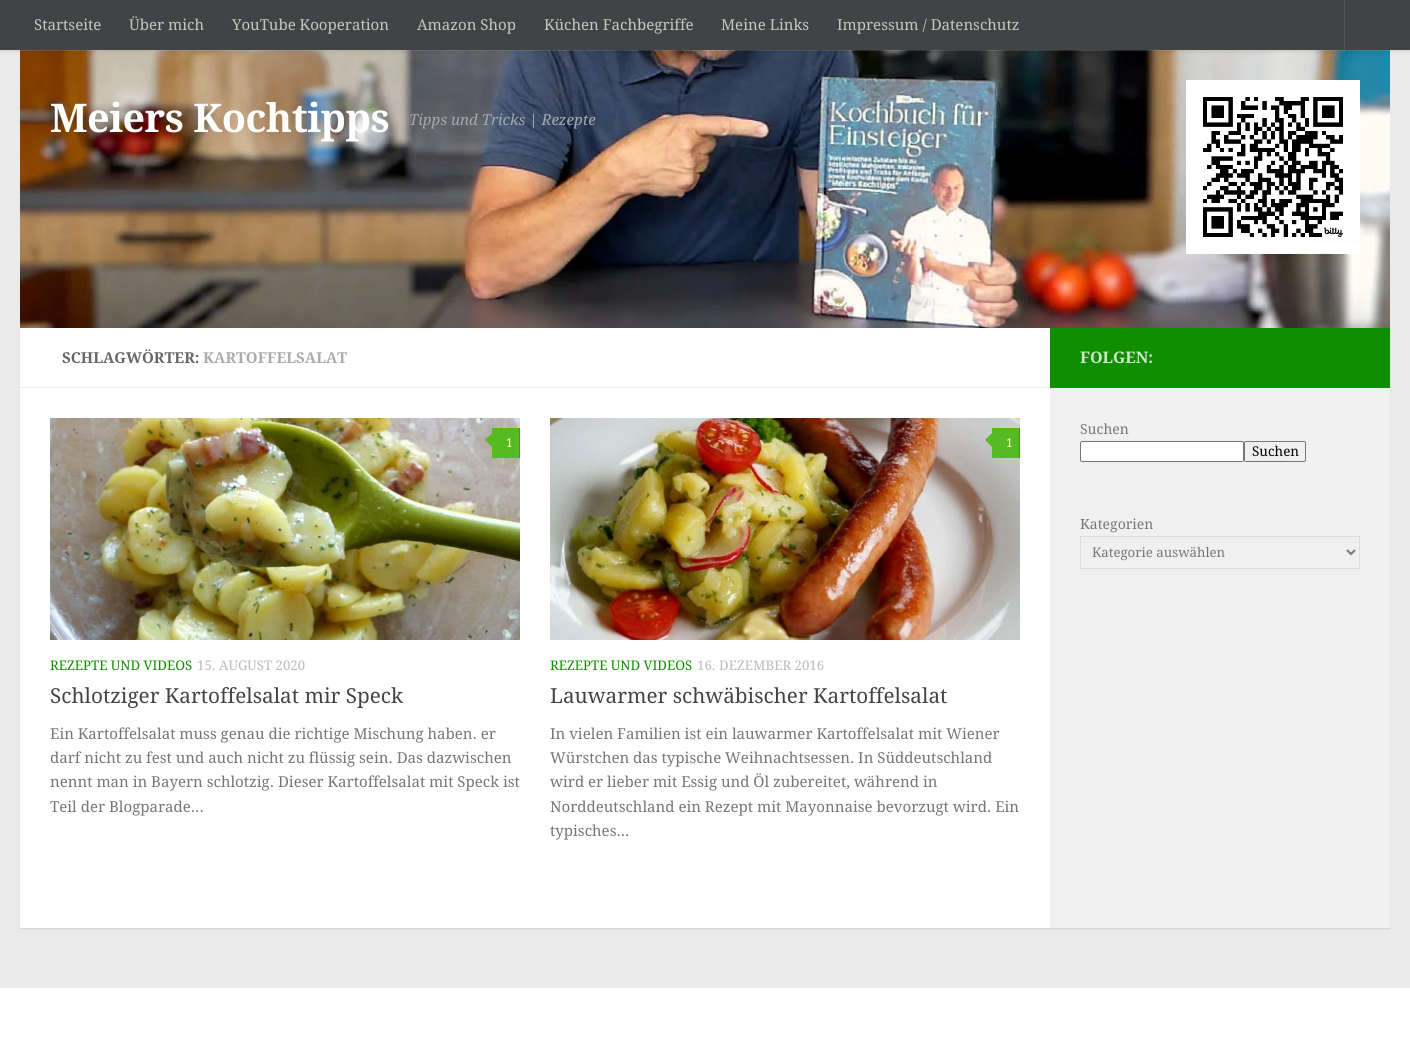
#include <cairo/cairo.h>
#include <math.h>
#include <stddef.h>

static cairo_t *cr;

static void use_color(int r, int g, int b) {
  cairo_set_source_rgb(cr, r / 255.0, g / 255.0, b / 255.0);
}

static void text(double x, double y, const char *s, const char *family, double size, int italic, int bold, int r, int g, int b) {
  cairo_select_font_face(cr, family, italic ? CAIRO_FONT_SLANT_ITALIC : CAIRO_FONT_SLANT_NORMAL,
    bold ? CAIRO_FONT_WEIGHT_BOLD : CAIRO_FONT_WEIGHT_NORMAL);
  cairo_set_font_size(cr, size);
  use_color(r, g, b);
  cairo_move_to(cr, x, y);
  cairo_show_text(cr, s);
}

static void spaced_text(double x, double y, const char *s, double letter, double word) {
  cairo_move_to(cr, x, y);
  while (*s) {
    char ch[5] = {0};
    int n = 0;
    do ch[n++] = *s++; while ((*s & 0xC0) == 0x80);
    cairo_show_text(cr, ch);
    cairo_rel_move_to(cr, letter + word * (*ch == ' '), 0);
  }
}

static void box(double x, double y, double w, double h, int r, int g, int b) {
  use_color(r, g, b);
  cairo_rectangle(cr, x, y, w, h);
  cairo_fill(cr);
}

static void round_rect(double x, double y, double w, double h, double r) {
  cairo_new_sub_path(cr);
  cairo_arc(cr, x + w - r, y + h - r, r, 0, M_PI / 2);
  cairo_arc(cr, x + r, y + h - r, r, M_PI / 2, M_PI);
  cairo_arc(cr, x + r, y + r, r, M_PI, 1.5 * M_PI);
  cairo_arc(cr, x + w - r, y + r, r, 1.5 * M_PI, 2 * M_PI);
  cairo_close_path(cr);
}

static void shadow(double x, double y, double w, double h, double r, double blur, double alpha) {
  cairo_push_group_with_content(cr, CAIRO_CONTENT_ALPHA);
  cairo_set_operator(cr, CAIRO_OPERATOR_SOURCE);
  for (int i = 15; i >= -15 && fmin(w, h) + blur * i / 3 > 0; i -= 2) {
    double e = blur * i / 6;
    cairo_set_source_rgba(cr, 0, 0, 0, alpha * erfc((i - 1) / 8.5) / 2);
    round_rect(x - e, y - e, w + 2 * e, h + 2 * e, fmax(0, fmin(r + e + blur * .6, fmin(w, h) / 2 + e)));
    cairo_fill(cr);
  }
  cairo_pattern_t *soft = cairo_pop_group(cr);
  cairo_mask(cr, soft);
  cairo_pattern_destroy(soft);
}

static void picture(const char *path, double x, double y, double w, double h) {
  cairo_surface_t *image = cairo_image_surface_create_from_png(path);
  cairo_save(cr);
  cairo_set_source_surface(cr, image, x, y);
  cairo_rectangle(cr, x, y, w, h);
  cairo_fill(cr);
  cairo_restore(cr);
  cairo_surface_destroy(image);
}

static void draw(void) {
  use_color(234, 234, 234);
  cairo_paint(cr);
  use_color(0, 0, 0);
  shadow(20, 329, 1370, 600, 0, 0.5, 0.1);
  box(20, 329, 1370, 59, 232, 232, 232);
  picture("img_01.png", 20, 50, 1370, 278);
  cairo_set_source_rgba(cr, 1, 1, 1, 0.15);
  cairo_rectangle(cr, 0, 50, 1410, 1);
  cairo_fill(cr);
  use_color(0, 0, 0);
  shadow(0, 0, 1410, 50, 0, 2.5, 0.2);
  box(0, 0, 1410, 50, 64, 68, 68);
  box(1344, 0, 1, 50, 83, 87, 87);
  picture("img_02.png", 1186, 80, 174, 174);
  box(20, 328, 1030, 600, 255, 255, 255);
  box(20, 387, 1030, 1, 238, 238, 238);
  picture("img_03.png", 50, 418, 470, 222);
  box(492, 428, 27, 30, 86, 186, 33);
  box(519, 428, 1, 30, 69, 149, 26);
  use_color(86, 186, 33);
  cairo_new_path(cr);
  cairo_move_to(cr, 494, 431);
  cairo_line_to(cr, 494, 449);
  cairo_line_to(cr, 485, 440);
  cairo_close_path(cr);
  cairo_fill(cr);
  picture("img_04.png", 550, 418, 470, 222);
  box(992, 428, 27, 30, 86, 186, 33);
  box(1019, 428, 1, 30, 69, 149, 26);
  use_color(86, 186, 33);
  cairo_new_path(cr);
  cairo_move_to(cr, 994, 431);
  cairo_line_to(cr, 994, 449);
  cairo_line_to(cr, 985, 440);
  cairo_close_path(cr);
  cairo_fill(cr);
  box(1050, 328, 340, 60, 16, 142, 0);
  box(1050, 388, 340, 540, 240, 240, 240);
  use_color(255, 255, 255);
  round_rect(1080.5, 441.5, 163, 20, 1.5);
  cairo_fill_preserve(cr);
  use_color(118, 118, 118);
  cairo_set_line_width(cr, 1);
  cairo_stroke(cr);
  round_rect(1244.5, 441.5, 61, 20, 1.5);
  cairo_stroke(cr);
  cairo_rectangle(cr, 1080.5, 536.5, 279, 32);
  use_color(221, 221, 221);
  cairo_stroke(cr);
  cairo_new_path(cr);
  cairo_move_to(cr, 1347, 550);
  cairo_line_to(cr, 1351, 554);
  cairo_line_to(cr, 1355, 550);
  use_color(119, 119, 119);
  cairo_set_line_width(cr, 2);
  cairo_stroke(cr);
  box(0, 988, 1410, 51, 255, 255, 255);
  text(34, 30, "Startseite", "Droid Serif", 15.05, 0, 0, 198, 199, 199);
  text(129, 30, "Über mich", "Droid Serif", 15.05, 0, 0, 198, 199, 199);
  text(232, 30, "YouTube Kooperation", "Droid Serif", 15.05, 0, 0, 198, 199, 199);
  text(417, 30, "Amazon Shop", "Droid Serif", 15.05, 0, 0, 198, 199, 199);
  text(544, 30, "Küchen Fachbegriffe", "Droid Serif", 15.05, 0, 0, 198, 199, 199);
  text(721, 30, "Meine Links", "Droid Serif", 15.05, 0, 0, 198, 199, 199);
  text(837, 30, "Impressum / Datenschutz", "Droid Serif", 15.05, 0, 0, 198, 199, 199);
  cairo_select_font_face(cr, "Droid Serif", CAIRO_FONT_SLANT_NORMAL, CAIRO_FONT_WEIGHT_BOLD);
  cairo_set_font_size(cr, 39.5);
  use_color(255, 255, 255);
  spaced_text(50, 132, "Meiers Kochtipps", -0.5, 0);
  text(409, 125, "Tipps und Tricks | Rezepte", "Droid Serif", 15.05, 1, 0, 164, 169, 178);
  text(62, 363, "SCHLAGWÖRTER:", "Droid Serif", 15.05, 0, 1, 102, 102, 102);
  text(203, 363, "KARTOFFELSALAT", "Droid Serif", 15.05, 0, 1, 170, 170, 170);
  text(506, 447, "1", "Droid Serif", 12, 0, 0, 255, 255, 255);
  text(50, 670, "REZEPTE UND VIDEOS", "Droid Serif", 13.25, 0, 0, 16, 142, 0);
  text(197, 670, "15. AUGUST 2020", "Droid Serif", 13.25, 0, 0, 187, 187, 187);
  text(50, 703, "Schlotziger Kartoffelsalat mir Speck", "Droid Serif", 20.7, 0, 0, 68, 68, 68);
  text(50, 739, "Ein Kartoffelsalat muss genau die richtige Mischung haben. er", "Droid Serif", 15.05, 0, 0, 118, 118, 118);
  text(50, 763, "darf nicht zu fest und auch nicht zu flüssig sein. Das dazwischen", "Droid Serif", 15.05, 0, 0, 118, 118, 118);
  text(50, 787, "nennt man in Bayern schlotzig. Dieser Kartoffelsalat mit Speck ist", "Droid Serif", 15.05, 0, 0, 118, 118, 118);
  text(50, 812, "Teil der Blogparade...", "Droid Serif", 15.05, 0, 0, 118, 118, 118);
  text(1006, 447, "1", "Droid Serif", 12, 0, 0, 255, 255, 255);
  text(550, 670, "REZEPTE UND VIDEOS", "Droid Serif", 13.25, 0, 0, 16, 142, 0);
  text(697, 670, "16. DEZEMBER 2016", "Droid Serif", 13.25, 0, 0, 187, 187, 187);
  text(550, 703, "Lauwarmer schwäbischer Kartoffelsalat", "Droid Serif", 20.7, 0, 0, 68, 68, 68);
  text(550, 739, "In vielen Familien ist ein lauwarmer Kartoffelsalat mit Wiener", "Droid Serif", 15.05, 0, 0, 118, 118, 118);
  text(550, 763, "Würstchen das typische Weihnachtsessen. In Süddeutschland", "Droid Serif", 15.05, 0, 0, 118, 118, 118);
  text(550, 787, "wird er lieber mit Essig und Öl zubereitet, während in", "Droid Serif", 15.05, 0, 0, 118, 118, 118);
  text(550, 812, "Norddeutschland ein Rezept mit Mayonnaise bevorzugt wird. Ein", "Droid Serif", 15.05, 0, 0, 118, 118, 118);
  text(550, 836, "typisches...", "Droid Serif", 15.05, 0, 0, 118, 118, 118);
  text(1080, 363, "FOLGEN:", "Droid Serif", 16, 0, 1, 207, 232, 204);
  text(1080, 434, "Suchen", "Droid Serif", 14, 0, 0, 118, 118, 118);
  text(1252, 456, "Suchen", "Droid Serif", 13.5, 0, 0, 0, 0, 0);
  text(1080, 529, "Kategorien", "Droid Serif", 14, 0, 0, 118, 118, 118);
  text(1092, 557, "Kategorie auswählen", "Droid Serif", 13.25, 0, 0, 118, 118, 118);
}

int main(void) {
  cairo_surface_t *surface = cairo_image_surface_create(CAIRO_FORMAT_RGB24, 1410, 1039);
  cr = cairo_create(surface);
  cairo_font_options_t *options = cairo_font_options_create();
  cairo_font_options_set_hint_metrics(options, CAIRO_HINT_METRICS_OFF);
  cairo_font_options_set_hint_style(options, CAIRO_HINT_STYLE_NONE);
  cairo_set_font_options(cr, options);
  cairo_set_miter_limit(cr, 4);
  draw();
  cairo_surface_write_to_png(surface, "out.png");
  cairo_font_options_destroy(options);
  cairo_destroy(cr);
  cairo_surface_destroy(surface);
  return 0;
}
